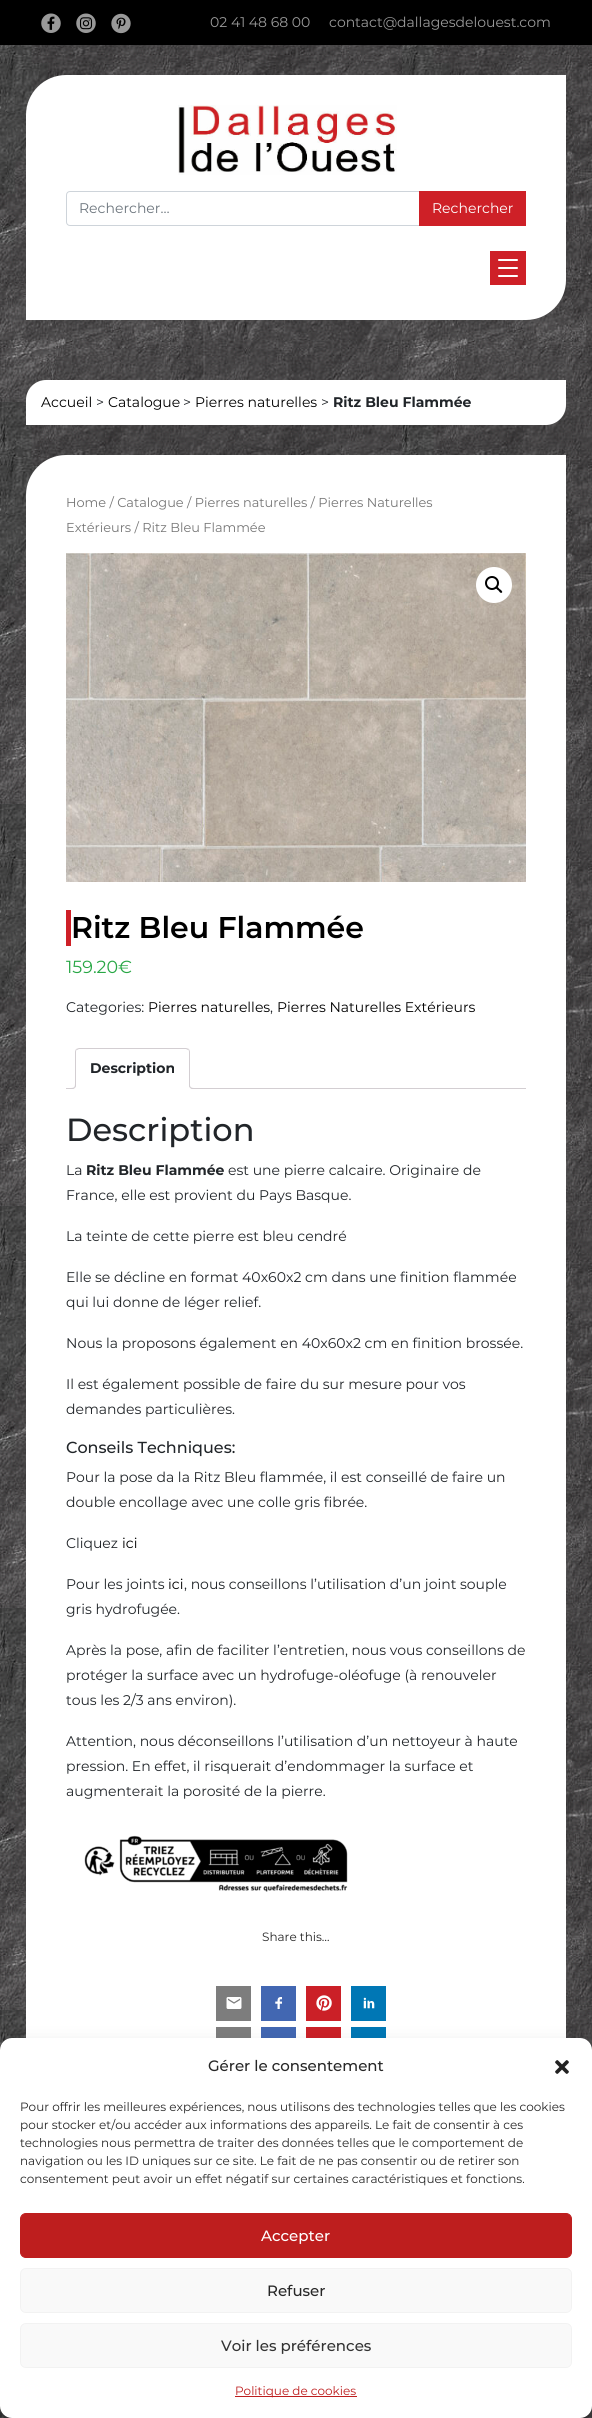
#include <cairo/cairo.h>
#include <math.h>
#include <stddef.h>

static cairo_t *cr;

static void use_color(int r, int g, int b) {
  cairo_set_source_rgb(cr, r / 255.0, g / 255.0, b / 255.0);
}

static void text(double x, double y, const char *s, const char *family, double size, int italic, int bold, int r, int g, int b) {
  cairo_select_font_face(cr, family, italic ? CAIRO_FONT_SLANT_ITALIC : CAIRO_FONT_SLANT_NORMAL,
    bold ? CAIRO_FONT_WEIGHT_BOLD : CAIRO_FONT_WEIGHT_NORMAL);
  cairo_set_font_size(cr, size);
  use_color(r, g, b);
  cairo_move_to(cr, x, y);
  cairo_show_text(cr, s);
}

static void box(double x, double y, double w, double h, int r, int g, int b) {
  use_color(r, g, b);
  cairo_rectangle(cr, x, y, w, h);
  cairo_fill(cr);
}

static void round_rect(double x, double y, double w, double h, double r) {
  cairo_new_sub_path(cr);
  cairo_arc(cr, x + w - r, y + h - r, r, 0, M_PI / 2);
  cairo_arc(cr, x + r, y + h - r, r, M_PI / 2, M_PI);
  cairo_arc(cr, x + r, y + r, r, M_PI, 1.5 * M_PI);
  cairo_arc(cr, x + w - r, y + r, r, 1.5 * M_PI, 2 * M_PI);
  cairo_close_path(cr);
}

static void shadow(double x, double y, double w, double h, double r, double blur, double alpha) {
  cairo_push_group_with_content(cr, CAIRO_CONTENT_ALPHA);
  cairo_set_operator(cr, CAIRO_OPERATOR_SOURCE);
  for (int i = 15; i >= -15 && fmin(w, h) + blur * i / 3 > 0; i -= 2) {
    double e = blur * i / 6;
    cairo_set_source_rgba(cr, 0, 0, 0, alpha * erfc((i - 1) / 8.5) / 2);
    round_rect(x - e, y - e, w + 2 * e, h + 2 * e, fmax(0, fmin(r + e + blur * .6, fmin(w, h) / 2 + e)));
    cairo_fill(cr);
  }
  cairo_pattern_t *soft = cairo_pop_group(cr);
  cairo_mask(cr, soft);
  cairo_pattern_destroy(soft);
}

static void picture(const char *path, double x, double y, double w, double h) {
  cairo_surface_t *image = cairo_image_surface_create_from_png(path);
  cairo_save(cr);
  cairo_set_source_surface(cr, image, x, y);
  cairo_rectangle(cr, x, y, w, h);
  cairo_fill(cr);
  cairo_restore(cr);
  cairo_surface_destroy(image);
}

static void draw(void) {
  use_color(255, 255, 255);
  cairo_paint(cr);
  picture("img_01.png", 0, 45, 592, 2373);
  box(0, 0, 592, 45, 0, 0, 0);
  picture("img_02.png", 41, 13, 20, 20);
  picture("img_03.png", 76, 13, 20, 20);
  picture("img_04.png", 111, 13, 20, 21);
  use_color(255, 255, 255);
  cairo_new_path(cr);
  cairo_move_to(cr, 66, 75);
  cairo_line_to(cr, 566, 75);
  cairo_line_to(cr, 566, 280);
  cairo_curve_to(cr, 566, 302, 548, 320, 526, 320);
  cairo_line_to(cr, 26, 320);
  cairo_line_to(cr, 26, 115);
  cairo_curve_to(cr, 26, 93, 44, 75, 66, 75);
  cairo_close_path(cr);
  cairo_fill(cr);
  picture("img_05.png", 178, 105, 219, 70);
  cairo_new_path(cr);
  cairo_move_to(cr, 70, 191.5);
  cairo_line_to(cr, 419.5, 191.5);
  cairo_line_to(cr, 419.5, 225.5);
  cairo_line_to(cr, 70, 225.5);
  cairo_curve_to(cr, 68, 225.5, 66.5, 224, 66.5, 222);
  cairo_line_to(cr, 66.5, 195);
  cairo_curve_to(cr, 66.5, 193, 68, 191.5, 70, 191.5);
  cairo_close_path(cr);
  use_color(206, 212, 218);
  cairo_set_line_width(cr, 1);
  cairo_stroke(cr);
  box(419, 191, 107, 35, 206, 32, 39);
  box(490, 251, 36, 34, 206, 32, 39);
  use_color(255, 255, 255);
  round_rect(498, 259, 20, 2, 1);
  cairo_fill(cr);
  round_rect(498, 267, 20, 2, 1);
  cairo_fill(cr);
  round_rect(498, 275, 20, 2, 1);
  cairo_fill(cr);
  cairo_new_path(cr);
  cairo_move_to(cr, 46, 380);
  cairo_line_to(cr, 566, 380);
  cairo_line_to(cr, 566, 405);
  cairo_curve_to(cr, 566, 416, 557, 425, 546, 425);
  cairo_line_to(cr, 26, 425);
  cairo_line_to(cr, 26, 400);
  cairo_curve_to(cr, 26, 389, 35, 380, 46, 380);
  cairo_close_path(cr);
  cairo_fill(cr);
  cairo_new_path(cr);
  cairo_move_to(cr, 66, 455);
  cairo_line_to(cr, 566, 455);
  cairo_line_to(cr, 566, 2418);
  cairo_curve_to(cr, 566, 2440, 548, 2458, 526, 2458);
  cairo_line_to(cr, 26, 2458);
  cairo_line_to(cr, 26, 495);
  cairo_curve_to(cr, 26, 473, 44, 455, 66, 455);
  cairo_close_path(cr);
  cairo_fill(cr);
  picture("img_06.png", 66, 553, 460, 329);
  cairo_arc(cr, 494, 585, 18, 0, 2 * M_PI);
  cairo_fill(cr);
  cairo_arc(cr, 492, 583, 6, 0, 2 * M_PI);
  use_color(0, 0, 0);
  cairo_set_line_width(cr, 2);
  cairo_stroke(cr);
  cairo_new_path(cr);
  cairo_move_to(cr, 496, 587);
  cairo_curve_to(cr, 497.5, 586, 499, 588.5, 499.5, 589);
  cairo_curve_to(cr, 500.5, 589.5, 503, 591.5, 502, 592.5);
  cairo_curve_to(cr, 500.5, 594, 499, 591, 498.5, 590.5);
  cairo_curve_to(cr, 497.5, 590, 495, 588, 496, 587);
  cairo_close_path(cr);
  cairo_fill(cr);
  box(66, 910, 5, 36, 206, 32, 39);
  box(66, 1088, 460, 1, 211, 206, 210);
  use_color(255, 255, 255);
  cairo_new_path(cr);
  cairo_move_to(cr, 79, 1048);
  cairo_line_to(cr, 186, 1048);
  cairo_curve_to(cr, 188, 1048, 190, 1050, 190, 1052);
  cairo_line_to(cr, 190, 1089);
  cairo_line_to(cr, 75, 1089);
  cairo_line_to(cr, 75, 1052);
  cairo_curve_to(cr, 75, 1050, 77, 1048, 79, 1048);
  cairo_close_path(cr);
  cairo_fill(cr);
  use_color(211, 206, 210);
  cairo_new_path(cr);
  cairo_move_to(cr, 79, 1048);
  cairo_line_to(cr, 76, 1049);
  cairo_line_to(cr, 77, 1050);
  cairo_line_to(cr, 79, 1049);
  cairo_line_to(cr, 186, 1049);
  cairo_line_to(cr, 188, 1050);
  cairo_line_to(cr, 189, 1049);
  cairo_line_to(cr, 186, 1048);
  cairo_close_path(cr);
  cairo_fill(cr);
  cairo_new_path(cr);
  cairo_move_to(cr, 190, 1089);
  cairo_line_to(cr, 190, 1052);
  cairo_curve_to(cr, 190, 1051, 189.5, 1050, 189, 1049);
  cairo_line_to(cr, 188, 1050);
  cairo_curve_to(cr, 189, 1050, 189, 1051, 189, 1052);
  cairo_line_to(cr, 189, 1088);
  cairo_close_path(cr);
  cairo_fill(cr);
  use_color(255, 255, 255);
  cairo_new_path(cr);
  cairo_move_to(cr, 190, 1089);
  cairo_line_to(cr, 189, 1088);
  cairo_line_to(cr, 76, 1088);
  cairo_line_to(cr, 75, 1089);
  cairo_close_path(cr);
  cairo_fill(cr);
  use_color(211, 206, 210);
  cairo_new_path(cr);
  cairo_move_to(cr, 75, 1089);
  cairo_line_to(cr, 76, 1088);
  cairo_line_to(cr, 76, 1052);
  cairo_curve_to(cr, 76, 1051, 76, 1050, 77, 1050);
  cairo_line_to(cr, 76, 1049);
  cairo_curve_to(cr, 75.5, 1050, 75, 1051, 75, 1052);
  cairo_close_path(cr);
  cairo_fill(cr);
  cairo_save(cr);
  cairo_rectangle(cr, 66, 1048, 460, 41);
  cairo_clip(cr);
  use_color(255, 255, 255);
  cairo_new_path(cr);
  cairo_move_to(cr, 73, 1089);
  cairo_line_to(cr, 73, 1091);
  cairo_curve_to(cr, 76.5, 1091, 78, 1089.5, 78, 1086);
  cairo_line_to(cr, 76, 1086);
  cairo_curve_to(cr, 75.5, 1087.5, 74.5, 1088.5, 73, 1089);
  cairo_close_path(cr);
  cairo_fill(cr);
  cairo_restore(cr);
  cairo_set_fill_rule(cr, CAIRO_FILL_RULE_EVEN_ODD);
  cairo_new_path(cr);
  cairo_move_to(cr, 71, 1084);
  cairo_line_to(cr, 76, 1084);
  cairo_curve_to(cr, 76, 1087.5, 74.5, 1089, 71, 1089);
  cairo_close_path(cr);
  cairo_move_to(cr, 71, 1084);
  cairo_line_to(cr, 75, 1084);
  cairo_curve_to(cr, 75, 1087, 74, 1088, 71, 1088);
  cairo_close_path(cr);
  cairo_fill(cr);
  cairo_save(cr);
  cairo_set_fill_rule(cr, CAIRO_FILL_RULE_WINDING);
  cairo_rectangle(cr, 66, 1048, 460, 41);
  cairo_clip(cr);
  use_color(255, 255, 255);
  cairo_new_path(cr);
  cairo_move_to(cr, 187, 1086);
  cairo_curve_to(cr, 187, 1089.5, 188.5, 1091, 192, 1091);
  cairo_line_to(cr, 192, 1089);
  cairo_curve_to(cr, 190.5, 1088.5, 189.5, 1087.5, 189, 1086);
  cairo_close_path(cr);
  cairo_fill(cr);
  cairo_restore(cr);
  cairo_new_path(cr);
  cairo_move_to(cr, 189, 1084);
  cairo_line_to(cr, 194, 1084);
  cairo_line_to(cr, 194, 1089);
  cairo_curve_to(cr, 191.5, 1089, 189, 1088, 189, 1085);
  cairo_close_path(cr);
  cairo_move_to(cr, 190, 1084);
  cairo_line_to(cr, 194, 1084);
  cairo_line_to(cr, 194, 1088);
  cairo_curve_to(cr, 192, 1088, 190, 1087.5, 190, 1085);
  cairo_close_path(cr);
  cairo_fill(cr);
  picture("img_07.png", 84, 1835, 264, 57);
  box(216, 1986, 35, 35, 125, 125, 125);
  picture("img_08.png", 226, 1997, 16, 12);
  box(216, 2027, 35, 11, 125, 125, 125);
  box(261, 1986, 35, 35, 66, 103, 178);
  picture("img_09.png", 275, 1997, 7, 12);
  box(261, 2027, 35, 11, 66, 103, 178);
  box(306, 1986, 35, 35, 203, 32, 39);
  picture("img_10.png", 316, 1995, 16, 16);
  box(306, 2027, 35, 11, 203, 32, 39);
  box(351, 1986, 35, 35, 0, 119, 181);
  picture("img_11.png", 363, 1997, 12, 12);
  box(351, 2027, 35, 11, 0, 119, 181);
  use_color(0, 0, 0);
  shadow(0, 2044, 592, 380, 12, 3, 0.23);
  shadow(0, 2048, 592, 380, 12, 10, 0.19);
  use_color(255, 255, 255);
  round_rect(0, 2038, 592, 380, 12);
  cairo_fill(cr);
  picture("img_12.png", 555, 2060, 14, 14);
  use_color(190, 30, 30);
  round_rect(20.5, 2213.5, 551, 44, 5.5);
  cairo_fill_preserve(cr);
  cairo_set_line_width(cr, 1);
  cairo_stroke(cr);
  use_color(249, 249, 249);
  round_rect(20.5, 2268.5, 551, 44, 5.5);
  cairo_fill_preserve(cr);
  use_color(242, 242, 242);
  cairo_stroke(cr);
  use_color(249, 249, 249);
  round_rect(20.5, 2323.5, 551, 44, 5.5);
  cairo_fill_preserve(cr);
  use_color(242, 242, 242);
  cairo_stroke(cr);
  box(235, 2396, 122, 1, 190, 30, 30);
  text(210, 27, "02 41 48 68 00", "Montserrat", 14, 0, 0, 153, 153, 153);
  text(329, 27, "contact@dallagesdelouest.com", "Montserrat", 14, 0, 0, 153, 153, 153);
  text(79, 213, "Rechercher…", "Montserrat", 14, 0, 0, 108, 117, 125);
  text(432, 213, "Rechercher", "Montserrat", 14, 0, 0, 255, 255, 255);
  text(41, 407, "Accueil", "Montserrat", 14, 0, 0, 0, 0, 0);
  text(96, 407, ">", "Montserrat", 14, 0, 0, 33, 37, 41);
  text(108, 407, "Catalogue", "Montserrat", 14, 0, 0, 0, 0, 0);
  text(183, 407, ">", "Montserrat", 14, 0, 0, 33, 37, 41);
  text(195, 407, "Pierres naturelles", "Montserrat", 14, 0, 0, 0, 0, 0);
  text(321, 407, ">", "Montserrat", 14, 0, 0, 33, 37, 41);
  text(333, 407, "Ritz Bleu Flammée", "Montserrat", 14, 0, 1, 33, 37, 41);
  text(66, 507, "Home / Catalogue / Pierres naturelles / Pierres Naturelles", "Montserrat", 12.9, 0, 0, 118, 118, 118);
  text(66, 532, "Extérieurs / Ritz Bleu Flammée", "Montserrat", 12.9, 0, 0, 118, 118, 118);
  text(71, 938, "Ritz Bleu Flammée", "Montserrat SemiBold", 30, 0, 0, 0, 0, 0);
  text(66, 973, "159.20€", "Montserrat", 17.5, 0, 0, 40, 167, 69);
  text(66, 1012, "Categories:", "Montserrat", 14, 0, 0, 33, 37, 41);
  text(148, 1012, "Pierres naturelles", "Montserrat", 14, 0, 0, 0, 0, 0);
  text(270, 1012, ",", "Montserrat", 14, 0, 0, 33, 37, 41);
  text(277, 1012, "Pierres Naturelles Extérieurs", "Montserrat", 14, 0, 0, 0, 0, 0);
  text(90, 1073, "Description", "Montserrat", 14, 0, 1, 33, 37, 41);
  text(66, 1141, "Description", "Montserrat Medium", 32, 0, 0, 33, 37, 41);
  text(66, 1175, "La", "Montserrat", 14, 0, 0, 33, 37, 41);
  text(86, 1175, "Ritz Bleu Flammée", "Montserrat", 14, 0, 1, 33, 37, 41);
  text(228, 1175, "est une pierre calcaire. Originaire de", "Montserrat", 14, 0, 0, 33, 37, 41);
  text(66, 1200, "France, elle est provient du Pays Basque.", "Montserrat", 14, 0, 0, 33, 37, 41);
  text(66, 1241, "La teinte de cette pierre est bleu cendré", "Montserrat", 14, 0, 0, 33, 37, 41);
  text(66, 1282, "Elle se décline en format 40x60x2 cm dans une finition flammée", "Montserrat", 14, 0, 0, 33, 37, 41);
  text(66, 1307, "qui lui donne de léger relief.", "Montserrat", 14, 0, 0, 33, 37, 41);
  text(66, 1348, "Nous la proposons également en 40x60x2 cm en finition brossée.", "Montserrat", 14, 0, 0, 33, 37, 41);
  text(66, 1389, "Il est également possible de faire du sur mesure pour vos", "Montserrat", 14, 0, 0, 33, 37, 41);
  text(66, 1414, "demandes particulières.", "Montserrat", 14, 0, 0, 33, 37, 41);
  text(66, 1453, "Conseils Techniques:", "Montserrat Medium", 16, 0, 0, 33, 37, 41);
  text(66, 1482, "Pour la pose da la Ritz Bleu flammée, il est conseillé de faire un", "Montserrat", 14, 0, 0, 33, 37, 41);
  text(66, 1507, "double encollage avec une colle gris fibrée.", "Montserrat", 14, 0, 0, 33, 37, 41);
  text(66, 1548, "Cliquez", "Montserrat", 14, 0, 0, 33, 37, 41);
  text(122, 1548, "ici", "Montserrat", 14, 0, 0, 0, 0, 0);
  text(66, 1589, "Pour les joints", "Montserrat", 14, 0, 0, 33, 37, 41);
  text(168, 1589, "ici", "Montserrat", 14, 0, 0, 0, 0, 0);
  text(184, 1589, ", nous conseillons l’utilisation d’un joint souple", "Montserrat", 14, 0, 0, 33, 37, 41);
  text(66, 1614, "gris hydrofugée.", "Montserrat", 14, 0, 0, 33, 37, 41);
  text(66, 1655, "Après la pose, afin de faciliter l’entretien, nous vous conseillons de", "Montserrat", 14, 0, 0, 33, 37, 41);
  text(66, 1680, "protéger la surface avec un hydrofuge-oléofuge (à renouveler", "Montserrat", 14, 0, 0, 33, 37, 41);
  text(66, 1705, "tous les 2/3 ans environ).", "Montserrat", 14, 0, 0, 33, 37, 41);
  text(66, 1746, "Attention, nous déconseillons l’utilisation d’un nettoyeur à haute", "Montserrat", 14, 0, 0, 33, 37, 41);
  text(66, 1771, "pression. En effet, il risquerait d’endommager la surface et", "Montserrat", 14, 0, 0, 33, 37, 41);
  text(66, 1796, "augmenterait la porosité de la pierre.", "Montserrat", 14, 0, 0, 33, 37, 41);
  text(262, 1941, "Share this…", "Montserrat", 12, 0, 0, 39, 39, 39);
  text(208, 2071, "Gérer le consentement", "Montserrat Medium", 15, 0, 0, 39, 39, 39);
  text(20, 2111, "Pour offrir les meilleures expériences, nous utilisons des technologies telles que les cookies", "Montserrat", 12, 0, 0, 39, 39, 39);
  text(20, 2129, "pour stocker et/ou accéder aux informations des appareils. Le fait de consentir à ces", "Montserrat", 12, 0, 0, 39, 39, 39);
  text(20, 2147, "technologies nous permettra de traiter des données telles que le comportement de", "Montserrat", 12, 0, 0, 39, 39, 39);
  text(20, 2165, "navigation ou les ID uniques sur ce site. Le fait de ne pas consentir ou de retirer son", "Montserrat", 12, 0, 0, 39, 39, 39);
  text(20, 2183, "consentement peut avoir un effet négatif sur certaines caractéristiques et fonctions.", "Montserrat", 12, 0, 0, 39, 39, 39);
  text(261, 2241, "Accepter", "Montserrat Medium", 15, 0, 0, 255, 255, 255);
  text(267, 2296, "Refuser", "Montserrat Medium", 15, 0, 0, 39, 39, 39);
  text(221, 2351, "Voir les préférences", "Montserrat Medium", 15, 0, 0, 51, 51, 51);
  text(235, 2395, "Politique de cookies", "Montserrat", 12, 0, 0, 190, 30, 30);
}

int main(void) {
  cairo_surface_t *surface = cairo_image_surface_create(CAIRO_FORMAT_RGB24, 592, 2418);
  cr = cairo_create(surface);
  cairo_font_options_t *options = cairo_font_options_create();
  cairo_font_options_set_hint_metrics(options, CAIRO_HINT_METRICS_OFF);
  cairo_font_options_set_hint_style(options, CAIRO_HINT_STYLE_NONE);
  cairo_set_font_options(cr, options);
  cairo_set_miter_limit(cr, 4);
  draw();
  cairo_surface_write_to_png(surface, "out.png");
  cairo_font_options_destroy(options);
  cairo_destroy(cr);
  cairo_surface_destroy(surface);
  return 0;
}
